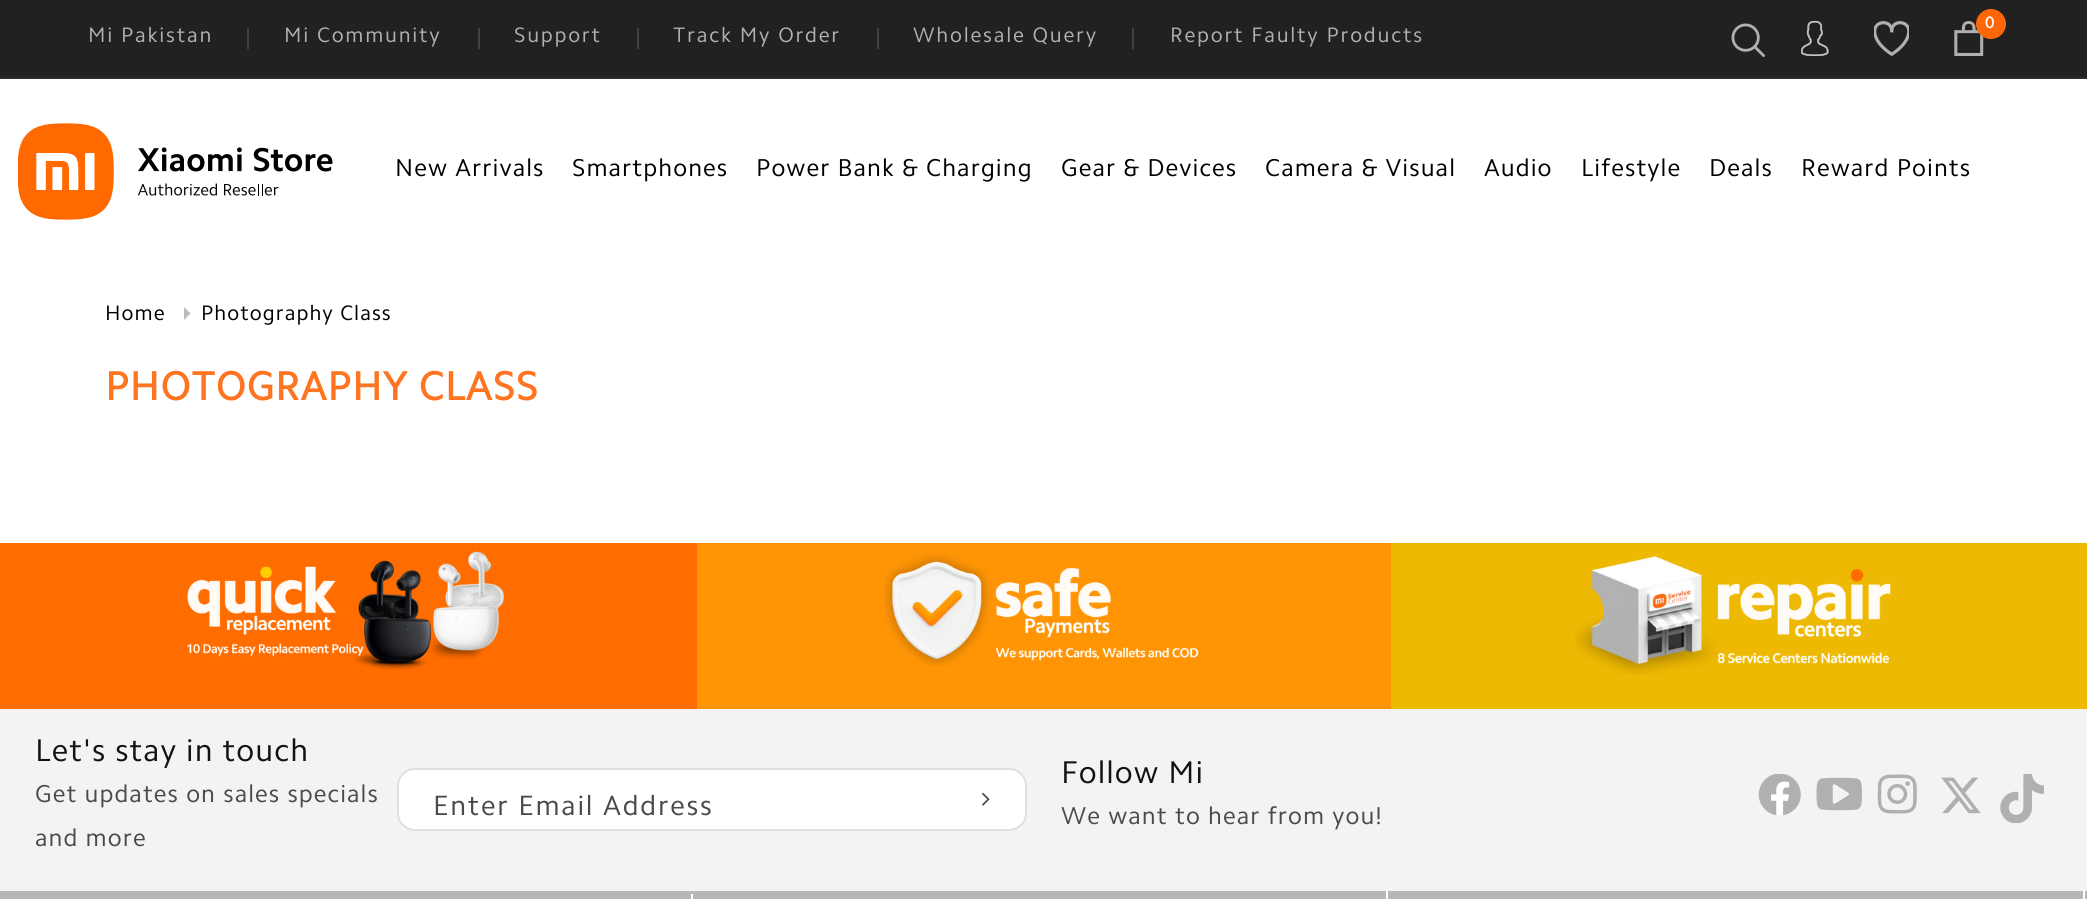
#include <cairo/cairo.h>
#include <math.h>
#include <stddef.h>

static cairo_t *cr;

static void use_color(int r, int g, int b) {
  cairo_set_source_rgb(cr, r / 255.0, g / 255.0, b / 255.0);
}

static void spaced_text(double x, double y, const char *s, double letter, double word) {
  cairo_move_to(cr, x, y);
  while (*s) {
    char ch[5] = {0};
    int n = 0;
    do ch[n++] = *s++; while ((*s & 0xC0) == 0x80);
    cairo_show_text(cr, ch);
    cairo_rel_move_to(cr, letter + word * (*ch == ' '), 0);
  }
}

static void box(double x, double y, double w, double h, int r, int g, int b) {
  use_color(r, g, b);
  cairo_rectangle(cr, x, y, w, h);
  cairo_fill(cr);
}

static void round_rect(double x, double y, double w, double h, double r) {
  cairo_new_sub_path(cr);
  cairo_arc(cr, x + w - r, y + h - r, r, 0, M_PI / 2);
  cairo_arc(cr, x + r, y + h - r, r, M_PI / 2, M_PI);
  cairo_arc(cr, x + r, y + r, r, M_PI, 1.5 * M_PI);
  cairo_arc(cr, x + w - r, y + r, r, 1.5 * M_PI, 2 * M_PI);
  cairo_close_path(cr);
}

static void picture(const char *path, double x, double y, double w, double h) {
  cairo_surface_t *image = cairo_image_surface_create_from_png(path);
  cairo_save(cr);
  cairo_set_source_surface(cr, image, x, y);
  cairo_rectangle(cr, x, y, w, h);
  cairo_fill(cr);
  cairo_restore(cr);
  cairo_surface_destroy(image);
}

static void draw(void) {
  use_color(255, 255, 255);
  cairo_paint(cr);
  box(0, 0, 2087, 77, 33, 33, 33);
  box(0, 77, 2087, 2, 44, 44, 44);
  picture("img_01.png", 1731, 23, 34, 34);
  picture("img_02.png", 1801, 21, 28, 35);
  picture("img_03.png", 1874, 21, 35, 35);
  picture("img_04.png", 1954, 21, 30, 35);
  use_color(255, 102, 8);
  cairo_arc(cr, 1991, 24, 15, 0, 2 * M_PI);
  cairo_fill(cr);
  box(247, 28, 2, 21, 66, 66, 66);
  box(478, 28, 2, 21, 66, 66, 66);
  box(637, 28, 2, 21, 66, 66, 66);
  box(877, 28, 2, 21, 66, 66, 66);
  box(1132, 28, 2, 21, 66, 66, 66);
  picture("img_05.png", 18, 123, 315, 97);
  use_color(188, 188, 188);
  cairo_new_path(cr);
  cairo_move_to(cr, 184, 307);
  cairo_line_to(cr, 190.5, 313.5);
  cairo_line_to(cr, 184, 320);
  cairo_close_path(cr);
  cairo_fill(cr);
  box(0, 543, 697, 166, 255, 109, 0);
  picture("img_06.png", 187, 551, 317, 119);
  box(697, 543, 694, 166, 255, 149, 5);
  picture("img_07.png", 884, 554, 315, 113);
  box(1391, 543, 696, 166, 238, 185, 2);
  picture("img_08.png", 1575, 556, 316, 119);
  box(0, 709, 2087, 182, 243, 243, 243);
  use_color(255, 255, 255);
  round_rect(398, 769, 628, 61, 17);
  cairo_fill_preserve(cr);
  use_color(224, 224, 224);
  cairo_stroke(cr);
  picture("img_09.png", 982, 792, 8, 14);
  picture("img_10.png", 1758, 774, 43, 42);
  picture("img_11.png", 1816, 777, 46, 34);
  picture("img_12.png", 1877, 774, 40, 40);
  picture("img_13.png", 1941, 777, 40, 37);
  picture("img_14.png", 2000, 774, 44, 49);
  box(0, 891, 2087, 8, 183, 183, 183);
  box(691, 894, 2, 5, 255, 255, 255);
  box(1386, 891, 2, 8, 255, 255, 255);
  box(2083, 891, 2, 8, 255, 255, 255);
  cairo_select_font_face(cr, "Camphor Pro", CAIRO_FONT_SLANT_NORMAL, CAIRO_FONT_WEIGHT_BOLD);
  cairo_set_font_size(cr, 16);
  spaced_text(1985, 28, "0", 1.05, 0);
  cairo_select_font_face(cr, "Camphor Pro", CAIRO_FONT_SLANT_NORMAL, CAIRO_FONT_WEIGHT_NORMAL);
  cairo_set_font_size(cr, 21);
  use_color(176, 176, 176);
  spaced_text(88, 42, "Mi Pakistan", 1.75, 0);
  spaced_text(284, 42, "Mi Community", 1.75, 0);
  spaced_text(514, 42, "Support", 1.75, 0);
  spaced_text(673, 42, "Track My Order", 1.75, 0);
  spaced_text(913, 42, "Wholesale Query", 1.75, 0);
  spaced_text(1170, 42, "Report Faulty Products", 1.75, 0);
  cairo_set_font_size(cr, 24.5);
  use_color(0, 0, 0);
  spaced_text(395, 176, "New Arrivals", 1.05, 0);
  spaced_text(572, 176, "Smartphones", 1.05, 0);
  spaced_text(756, 176, "Power Bank & Charging", 1.05, 0);
  spaced_text(1061, 176, "Gear & Devices", 1.05, 0);
  spaced_text(1265, 176, "Camera & Visual", 1.05, 0);
  spaced_text(1484, 176, "Audio", 1.05, 0);
  spaced_text(1581, 176, "Lifestyle", 1.05, 0);
  spaced_text(1709, 176, "Deals", 1.05, 0);
  spaced_text(1801, 176, "Reward Points", 1.05, 0);
  cairo_set_font_size(cr, 21);
  spaced_text(105, 320, "Home", 1.05, 0);
  spaced_text(201, 320, "Photography Class", 1.05, 0);
  cairo_select_font_face(cr, "Camphor Pro", CAIRO_FONT_SLANT_NORMAL, CAIRO_FONT_WEIGHT_BOLD);
  cairo_set_font_size(cr, 40.25);
  use_color(254, 116, 32);
  spaced_text(105, 400, "PHOTOGRAPHY CLASS", 1.05, 0);
  cairo_select_font_face(cr, "Camphor Pro", CAIRO_FONT_SLANT_NORMAL, CAIRO_FONT_WEIGHT_NORMAL);
  cairo_set_font_size(cr, 31.5);
  use_color(18, 18, 18);
  spaced_text(35, 761, "Let's stay in touch", 1.05, 0);
  cairo_set_font_size(cr, 24.5);
  use_color(74, 74, 74);
  spaced_text(35, 802, "Get updates on sales specials", 1.05, 0);
  spaced_text(35, 846, "and more", 1.05, 0);
  cairo_set_font_size(cr, 28);
  spaced_text(433, 815, "Enter Email Address", 1.75, 0);
  cairo_set_font_size(cr, 31.5);
  use_color(18, 18, 18);
  spaced_text(1061, 783, "Follow Mi", 1.05, 0);
  cairo_set_font_size(cr, 24.5);
  use_color(74, 74, 74);
  spaced_text(1061, 824, "We want to hear from you!", 1.05, 0);
}

int main(void) {
  cairo_surface_t *surface = cairo_image_surface_create(CAIRO_FORMAT_RGB24, 2087, 899);
  cr = cairo_create(surface);
  cairo_font_options_t *options = cairo_font_options_create();
  cairo_font_options_set_hint_metrics(options, CAIRO_HINT_METRICS_OFF);
  cairo_font_options_set_hint_style(options, CAIRO_HINT_STYLE_NONE);
  cairo_set_font_options(cr, options);
  cairo_set_miter_limit(cr, 4);
  draw();
  cairo_surface_write_to_png(surface, "out.png");
  cairo_font_options_destroy(options);
  cairo_destroy(cr);
  cairo_surface_destroy(surface);
  return 0;
}
